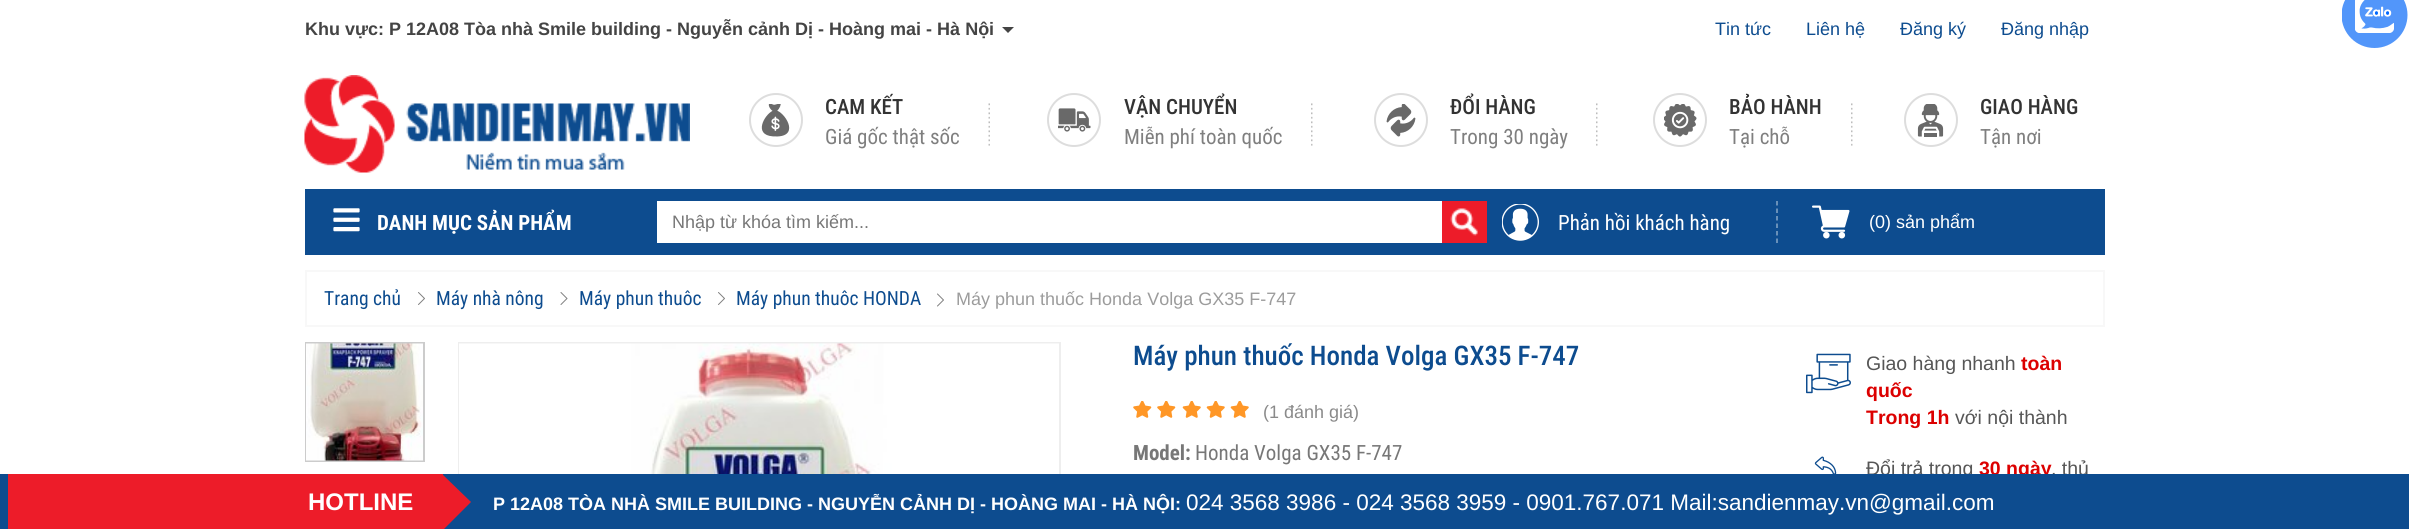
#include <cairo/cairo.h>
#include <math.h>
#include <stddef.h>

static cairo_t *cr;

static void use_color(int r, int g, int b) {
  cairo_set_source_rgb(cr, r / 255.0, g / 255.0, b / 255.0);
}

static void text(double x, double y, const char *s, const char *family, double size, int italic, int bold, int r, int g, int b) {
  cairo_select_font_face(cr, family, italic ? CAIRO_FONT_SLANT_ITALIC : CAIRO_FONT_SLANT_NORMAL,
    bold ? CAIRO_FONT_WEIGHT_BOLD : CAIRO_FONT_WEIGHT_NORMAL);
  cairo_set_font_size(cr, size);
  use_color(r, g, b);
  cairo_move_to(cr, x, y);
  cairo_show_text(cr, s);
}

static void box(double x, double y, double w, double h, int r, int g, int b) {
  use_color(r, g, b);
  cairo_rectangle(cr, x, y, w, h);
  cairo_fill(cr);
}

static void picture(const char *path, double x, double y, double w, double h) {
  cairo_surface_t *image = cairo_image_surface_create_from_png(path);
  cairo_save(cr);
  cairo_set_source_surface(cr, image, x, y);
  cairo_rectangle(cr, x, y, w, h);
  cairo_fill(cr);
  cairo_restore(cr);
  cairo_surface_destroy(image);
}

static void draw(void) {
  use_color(255, 255, 255);
  cairo_paint(cr);
  use_color(68, 68, 68);
  cairo_new_path(cr);
  cairo_move_to(cr, 1002, 27);
  cairo_line_to(cr, 1014, 27);
  cairo_line_to(cr, 1008, 33);
  cairo_close_path(cr);
  cairo_fill(cr);
  picture("img_01.png", 2342, 0, 66, 48);
  picture("img_02.png", 304, 75, 386, 98);
  cairo_arc(cr, 776, 120, 26, 0, 2 * M_PI);
  use_color(221, 221, 221);
  cairo_stroke(cr);
  picture("img_03.png", 761, 104, 29, 33);
  picture("img_04.png", 988, 103, 2, 43);
  cairo_arc(cr, 1074, 120, 26, 0, 2 * M_PI);
  cairo_stroke(cr);
  picture("img_05.png", 1058, 108, 33, 24);
  picture("img_06.png", 1311, 103, 2, 43);
  cairo_arc(cr, 1401, 120, 26, 0, 2 * M_PI);
  cairo_stroke(cr);
  picture("img_07.png", 1386, 104, 30, 33);
  picture("img_06.png", 1596, 103, 2, 43);
  cairo_arc(cr, 1680, 120, 26, 0, 2 * M_PI);
  cairo_stroke(cr);
  picture("img_08.png", 1664, 104, 33, 33);
  picture("img_06.png", 1851, 103, 2, 43);
  cairo_arc(cr, 1931, 120, 26, 0, 2 * M_PI);
  cairo_stroke(cr);
  picture("img_09.png", 1917, 104, 27, 33);
  box(305, 189, 1800, 66, 13, 76, 143);
  picture("img_10.png", 333, 208, 27, 24);
  box(657, 201, 785, 42, 255, 255, 255);
  box(1442, 201, 45, 42, 237, 28, 41);
  picture("img_11.png", 1450, 208, 28, 28);
  picture("img_12.png", 1502, 204, 37, 37);
  cairo_new_path(cr);
  cairo_move_to(cr, 1777, 201);
  cairo_line_to(cr, 1777, 243);
  use_color(134, 166, 199);
  cairo_set_line_width(cr, 1.5);
  cairo_set_dash(cr, (double[]){4.5, 3}, 2, 0);
  cairo_stroke(cr);
  picture("img_13.png", 1812, 205, 38, 34);
  cairo_rectangle(cr, 306, 271, 1798, 55);
  use_color(248, 248, 248);
  cairo_set_line_width(cr, 2);
  cairo_set_dash(cr, NULL, 0, 0);
  cairo_stroke(cr);
  picture("img_14.png", 418, 292, 7, 13);
  picture("img_15.png", 560, 292, 8, 13);
  picture("img_14.png", 718, 292, 7, 13);
  picture("img_16.png", 937, 293, 7, 14);
  cairo_rectangle(cr, 306, 343, 118, 118);
  use_color(204, 204, 204);
  cairo_stroke(cr);
  picture("img_17.png", 306, 343, 117, 118);
  cairo_rectangle(cr, 459, 343, 601, 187);
  use_color(238, 238, 238);
  cairo_stroke(cr);
  picture("img_18.png", 459, 343, 600, 131);
  picture("img_19.png", 1133, 401, 19, 17);
  picture("img_19.png", 1157, 401, 19, 17);
  picture("img_20.png", 1182, 401, 19, 17);
  picture("img_20.png", 1206, 401, 19, 17);
  picture("img_20.png", 1230, 401, 19, 17);
  picture("img_21.png", 1806, 353, 45, 41);
  picture("img_22.png", 1814, 456, 23, 18);
  text(305, 35, "Khu vực: P 12A08 Tòa nhà Smile building - Nguyễn cảnh Dị - Hoàng mai - Hà Nội", "Liberation Sans", 18, 0, 1, 68, 68, 68);
  text(1715, 35, "Tin tức", "Liberation Sans", 18, 0, 0, 13, 76, 143);
  text(1806, 35, "Liên hệ", "Liberation Sans", 18, 0, 0, 13, 76, 143);
  text(1900, 35, "Đăng ký", "Liberation Sans", 18, 0, 0, 13, 76, 143);
  text(2001, 35, "Đăng nhập", "Liberation Sans", 18, 0, 0, 13, 76, 143);
  text(825, 114, "CAM KẾT", "Roboto Condensed Medium", 21, 0, 0, 51, 51, 51);
  text(825, 144, "Giá gốc thật sốc", "Roboto Condensed", 21, 0, 0, 127, 127, 127);
  text(1124, 114, "VẬN CHUYỂN", "Roboto Condensed Medium", 21, 0, 0, 51, 51, 51);
  text(1124, 144, "Miễn phí toàn quốc", "Roboto Condensed", 21, 0, 0, 127, 127, 127);
  text(1450, 114, "ĐỔI HÀNG", "Roboto Condensed Medium", 21, 0, 0, 51, 51, 51);
  text(1450, 144, "Trong 30 ngày", "Roboto Condensed", 21, 0, 0, 127, 127, 127);
  text(1729, 114, "BẢO HÀNH", "Roboto Condensed Medium", 21, 0, 0, 51, 51, 51);
  text(1729, 144, "Tại chỗ", "Roboto Condensed", 21, 0, 0, 127, 127, 127);
  text(1980, 114, "GIAO HÀNG", "Roboto Condensed Medium", 21, 0, 0, 51, 51, 51);
  text(1980, 144, "Tận nơi", "Roboto Condensed", 21, 0, 0, 127, 127, 127);
  text(377, 230, "DANH MỤC SẢN PHẨM", "Roboto Condensed", 21, 0, 1, 255, 255, 255);
  text(672, 228, "Nhập từ khóa tìm kiếm...", "Liberation Sans", 18, 0, 0, 119, 119, 119);
  text(1558, 230, "Phản hồi khách hàng", "Roboto Condensed", 21, 0, 0, 255, 255, 255);
  text(1869, 228, "(0) sản phẩm", "Liberation Sans", 18, 0, 0, 255, 255, 255);
  text(324, 305, "Trang chủ", "Roboto Condensed", 19.5, 0, 0, 13, 76, 143);
  text(436, 305, "Máy nhà nông", "Roboto Condensed", 19.5, 0, 0, 13, 76, 143);
  text(579, 305, "Máy phun thuôc", "Roboto Condensed", 19.5, 0, 0, 13, 76, 143);
  text(736, 305, "Máy phun thuôc HONDA", "Roboto Condensed", 19.5, 0, 0, 13, 76, 143);
  text(956, 305, "Máy phun thuốc Honda Volga GX35 F-747", "Liberation Sans", 18, 0, 0, 156, 156, 156);
  text(1133, 365, "Máy phun thuốc Honda Volga GX35 F-747", "Roboto Condensed Medium", 27, 0, 0, 13, 76, 143);
  text(1263, 418, "(1 đánh giá)", "Liberation Sans", 18, 0, 0, 138, 138, 138);
  text(1133, 460, "Model:", "Roboto Condensed", 21, 0, 1, 119, 119, 119);
  text(1195, 460, "Honda Volga GX35 F-747", "Roboto Condensed", 21, 0, 0, 119, 119, 119);
  text(1866, 370, "Giao hàng nhanh", "Liberation Sans", 19.5, 0, 0, 86, 86, 86);
  text(2021, 370, "toàn", "Liberation Sans", 19.5, 0, 1, 220, 0, 0);
  text(1866, 397, "quốc", "Liberation Sans", 19.5, 0, 1, 220, 0, 0);
  text(1866, 424, "Trong 1h", "Liberation Sans", 19.5, 0, 1, 220, 0, 0);
  text(1955, 424, "với nội thành", "Liberation Sans", 19.5, 0, 0, 86, 86, 86);
  text(1866, 475, "Đổi trả trong", "Liberation Sans", 19.5, 0, 0, 86, 86, 86);
  text(1979, 475, "30 ngày", "Liberation Sans", 19.5, 0, 1, 220, 0, 0);
  text(2051, 475, ", thủ", "Liberation Sans", 19.5, 0, 0, 86, 86, 86);
  box(0, 474, 2409, 55, 13, 76, 143);
  box(8, 474, 435, 55, 237, 28, 41);
  text(308, 510, "HOTLINE", "Liberation Sans", 24, 0, 1, 255, 255, 255);
  use_color(237, 28, 41);
  cairo_new_path(cr);
  cairo_move_to(cr, 442, 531);
  cairo_line_to(cr, 442, 474);
  cairo_line_to(cr, 471, 502);
  cairo_close_path(cr);
  cairo_fill(cr);
  text(493, 510, "P 12A08 TÒA NHÀ SMILE BUILDING - NGUYỄN CẢNH DỊ - HOÀNG MAI - HÀ NỘI:", "Liberation Sans", 18, 0, 1, 255, 255, 255);
  text(1186, 510, "024 3568 3986 - 024 3568 3959 - 0901.767.071 Mail:sandienmay.vn@gmail.com", "Liberation Sans", 22.5, 0, 0, 255, 255, 255);
}

int main(void) {
  cairo_surface_t *surface = cairo_image_surface_create(CAIRO_FORMAT_RGB24, 2409, 529);
  cr = cairo_create(surface);
  cairo_font_options_t *options = cairo_font_options_create();
  cairo_font_options_set_hint_metrics(options, CAIRO_HINT_METRICS_OFF);
  cairo_font_options_set_hint_style(options, CAIRO_HINT_STYLE_NONE);
  cairo_set_font_options(cr, options);
  cairo_set_miter_limit(cr, 4);
  draw();
  cairo_surface_write_to_png(surface, "out.png");
  cairo_font_options_destroy(options);
  cairo_destroy(cr);
  cairo_surface_destroy(surface);
  return 0;
}
